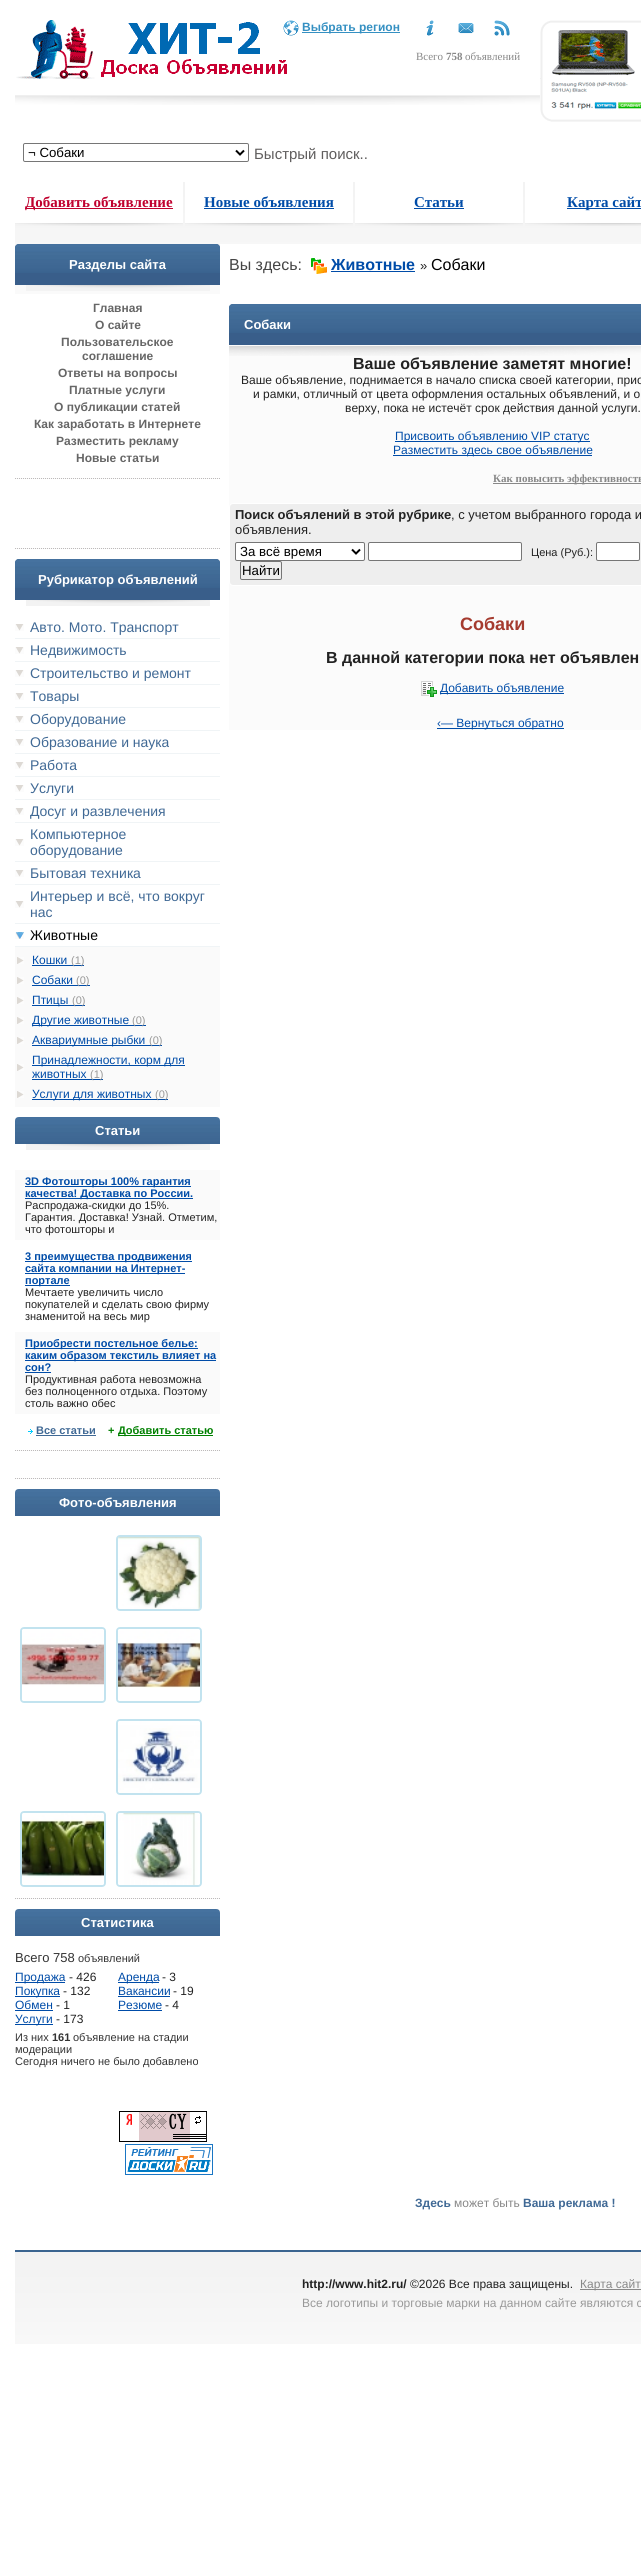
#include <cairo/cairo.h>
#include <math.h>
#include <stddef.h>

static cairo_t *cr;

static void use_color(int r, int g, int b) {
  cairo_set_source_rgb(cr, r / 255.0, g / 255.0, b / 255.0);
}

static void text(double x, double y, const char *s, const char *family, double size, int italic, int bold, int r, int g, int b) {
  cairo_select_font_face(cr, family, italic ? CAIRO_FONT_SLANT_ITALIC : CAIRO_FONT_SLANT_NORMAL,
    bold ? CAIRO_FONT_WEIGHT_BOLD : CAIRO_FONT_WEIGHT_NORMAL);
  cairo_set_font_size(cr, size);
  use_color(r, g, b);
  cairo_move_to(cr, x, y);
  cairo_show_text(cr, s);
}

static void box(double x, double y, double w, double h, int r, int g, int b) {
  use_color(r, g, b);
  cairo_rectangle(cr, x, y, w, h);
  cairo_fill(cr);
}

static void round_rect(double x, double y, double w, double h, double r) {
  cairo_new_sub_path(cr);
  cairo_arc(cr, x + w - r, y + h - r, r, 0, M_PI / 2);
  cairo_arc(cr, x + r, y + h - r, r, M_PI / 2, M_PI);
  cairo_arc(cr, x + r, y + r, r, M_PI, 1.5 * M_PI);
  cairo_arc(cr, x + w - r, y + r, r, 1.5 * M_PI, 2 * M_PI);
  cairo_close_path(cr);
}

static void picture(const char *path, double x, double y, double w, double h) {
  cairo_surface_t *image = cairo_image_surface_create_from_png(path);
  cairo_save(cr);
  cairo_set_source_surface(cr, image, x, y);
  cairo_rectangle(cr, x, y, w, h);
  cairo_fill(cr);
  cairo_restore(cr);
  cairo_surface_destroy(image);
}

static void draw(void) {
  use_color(255, 255, 255);
  cairo_paint(cr);
  picture("img_01.png", 16, 20, 271, 59);
  picture("img_02.png", 283, 20, 16, 16);
  box(302, 32, 98, 1, 53, 144, 194);
  picture("img_03.png", 426, 20, 8, 16);
  picture("img_04.png", 458, 23, 16, 11);
  picture("img_05.png", 494, 20, 16, 16);
  box(15, 95, 525, 1, 239, 239, 239);
  picture("img_06.png", 15, 96, 525, 9);
  picture("img_07.png", 551, 20, 90, 102);
  picture("img_08.png", 540, 20, 11, 102);
  picture("img_09.png", 551, 30, 90, 80);
  round_rect(23.5, 143.5, 225, 18, 1.5);
  use_color(118, 118, 118);
  cairo_set_line_width(cr, 1);
  cairo_stroke(cr);
  cairo_new_path(cr);
  cairo_move_to(cr, 236, 150.5);
  cairo_line_to(cr, 240, 154.5);
  cairo_line_to(cr, 244, 150.5);
  use_color(0, 0, 0);
  cairo_set_line_width(cr, 2);
  cairo_stroke(cr);
  picture("img_10.png", 15, 182, 626, 112);
  box(15, 182, 168, 41, 255, 255, 255);
  box(25, 208, 148, 1, 192, 0, 46);
  picture("img_11.png", 15, 223, 168, 3);
  box(185, 182, 168, 41, 255, 255, 255);
  box(204, 208, 130, 1, 0, 76, 168);
  picture("img_11.png", 185, 223, 168, 3);
  box(355, 182, 168, 41, 255, 255, 255);
  box(414, 208, 50, 1, 0, 76, 168);
  picture("img_11.png", 355, 223, 168, 3);
  box(525, 182, 116, 41, 255, 255, 255);
  box(567, 208, 74, 1, 0, 76, 168);
  picture("img_12.png", 525, 223, 116, 3);
  box(220, 244, 421, 50, 255, 255, 255);
  use_color(57, 94, 138);
  cairo_new_path(cr);
  cairo_move_to(cr, 19, 244);
  cairo_line_to(cr, 216, 244);
  cairo_curve_to(cr, 218, 244, 220, 246, 220, 248);
  cairo_line_to(cr, 220, 285);
  cairo_line_to(cr, 15, 285);
  cairo_line_to(cr, 15, 248);
  cairo_curve_to(cr, 15, 246, 17, 244, 19, 244);
  cairo_close_path(cr);
  cairo_fill(cr);
  picture("img_13.png", 15, 244, 205, 29);
  picture("img_14.png", 26, 285, 184, 6);
  picture("img_15.png", 15, 478, 205, 1);
  picture("img_15.png", 15, 548, 205, 1);
  cairo_new_path(cr);
  cairo_move_to(cr, 19, 559);
  cairo_line_to(cr, 216, 559);
  cairo_curve_to(cr, 218, 559, 220, 561, 220, 563);
  cairo_line_to(cr, 220, 600);
  cairo_line_to(cr, 15, 600);
  cairo_line_to(cr, 15, 563);
  cairo_curve_to(cr, 15, 561, 17, 559, 19, 559);
  cairo_close_path(cr);
  cairo_fill(cr);
  picture("img_16.png", 15, 559, 205, 29);
  picture("img_14.png", 26, 600, 184, 6);
  box(15, 638, 205, 1, 240, 244, 246);
  picture("img_17.png", 15, 624, 9, 7);
  box(15, 661, 205, 1, 240, 244, 246);
  picture("img_17.png", 15, 647, 9, 7);
  box(15, 684, 205, 1, 240, 244, 246);
  picture("img_17.png", 15, 670, 9, 7);
  box(15, 707, 205, 1, 240, 244, 246);
  picture("img_17.png", 15, 693, 9, 7);
  box(15, 730, 205, 1, 240, 244, 246);
  picture("img_17.png", 15, 716, 9, 7);
  box(15, 753, 205, 1, 240, 244, 246);
  picture("img_17.png", 15, 739, 9, 7);
  box(15, 776, 205, 1, 240, 244, 246);
  picture("img_17.png", 15, 762, 9, 7);
  box(15, 799, 205, 1, 240, 244, 246);
  picture("img_17.png", 15, 785, 9, 7);
  box(15, 822, 205, 1, 240, 244, 246);
  picture("img_17.png", 15, 808, 9, 7);
  box(15, 861, 205, 1, 240, 244, 246);
  picture("img_17.png", 15, 839, 9, 7);
  box(15, 884, 205, 1, 240, 244, 246);
  picture("img_17.png", 15, 870, 9, 7);
  box(15, 923, 205, 1, 240, 244, 246);
  picture("img_17.png", 15, 901, 9, 7);
  box(15, 946, 205, 1, 240, 244, 246);
  picture("img_18.png", 15, 932, 9, 7);
  box(15, 947, 205, 160, 250, 250, 250);
  picture("img_19.png", 17, 957, 7, 7);
  box(32, 965, 52, 1, 0, 76, 168);
  picture("img_19.png", 17, 977, 7, 7);
  box(32, 985, 58, 1, 0, 76, 168);
  picture("img_19.png", 17, 997, 7, 7);
  box(32, 1005, 53, 1, 0, 76, 168);
  picture("img_19.png", 17, 1017, 7, 7);
  box(32, 1025, 114, 1, 0, 76, 168);
  picture("img_19.png", 17, 1037, 7, 7);
  box(32, 1045, 130, 1, 0, 76, 168);
  picture("img_19.png", 17, 1064, 7, 7);
  box(32, 1065, 153, 1, 0, 76, 168);
  box(32, 1079, 71, 1, 0, 76, 168);
  picture("img_19.png", 17, 1091, 7, 7);
  box(32, 1099, 136, 1, 0, 76, 168);
  picture("img_20.png", 15, 1117, 205, 27);
  picture("img_14.png", 26, 1144, 184, 6);
  box(15, 1170, 205, 70, 250, 250, 250);
  box(25, 1186, 166, 1, 0, 76, 168);
  box(25, 1198, 168, 1, 0, 76, 168);
  box(25, 1261, 167, 1, 0, 76, 168);
  box(25, 1273, 160, 1, 0, 76, 168);
  box(25, 1285, 45, 1, 0, 76, 168);
  box(15, 1332, 205, 82, 250, 250, 250);
  box(25, 1348, 173, 1, 0, 76, 168);
  box(25, 1360, 191, 1, 0, 76, 168);
  box(25, 1372, 26, 1, 0, 76, 168);
  picture("img_21.png", 28, 1429, 5, 5);
  box(36, 1435, 60, 1, 64, 105, 149);
  box(118, 1435, 95, 1, 0, 128, 0);
  picture("img_15.png", 15, 1450, 205, 1);
  picture("img_15.png", 15, 1478, 205, 1);
  picture("img_20.png", 15, 1489, 205, 27);
  round_rect(117, 1536, 84, 74, 3);
  use_color(194, 227, 239);
  cairo_stroke(cr);
  picture("img_22.png", 118, 1537, 82, 72);
  round_rect(21, 1628, 84, 74, 3);
  cairo_stroke(cr);
  picture("img_23.png", 22, 1629, 82, 72);
  round_rect(117, 1628, 84, 74, 3);
  cairo_stroke(cr);
  picture("img_24.png", 118, 1629, 82, 72);
  round_rect(117, 1720, 84, 74, 3);
  cairo_stroke(cr);
  picture("img_25.png", 118, 1721, 82, 72);
  round_rect(21, 1812, 84, 74, 3);
  cairo_stroke(cr);
  picture("img_26.png", 22, 1813, 82, 72);
  round_rect(117, 1812, 84, 74, 3);
  cairo_stroke(cr);
  picture("img_27.png", 118, 1813, 82, 72);
  picture("img_15.png", 15, 1898, 205, 1);
  picture("img_20.png", 15, 1909, 205, 27);
  box(15, 1982, 50, 1, 0, 76, 168);
  box(15, 1996, 45, 1, 0, 76, 168);
  box(15, 2010, 38, 1, 0, 76, 168);
  box(15, 2024, 38, 1, 0, 76, 168);
  box(118, 1982, 41, 1, 0, 76, 168);
  box(118, 1996, 52, 1, 0, 76, 168);
  box(118, 2010, 44, 1, 0, 76, 168);
  picture("img_28.png", 119, 2111, 88, 31);
  picture("img_29.png", 125, 2144, 88, 31);
  picture("img_30.png", 311, 258, 16, 16);
  box(331, 271, 84, 1, 0, 76, 168);
  use_color(57, 94, 138);
  cairo_new_path(cr);
  cairo_move_to(cr, 233, 304);
  cairo_line_to(cr, 641, 304);
  cairo_curve_to(cr, 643, 304, 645, 306, 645, 308);
  cairo_line_to(cr, 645, 345);
  cairo_line_to(cr, 229, 345);
  cairo_line_to(cr, 229, 308);
  cairo_curve_to(cr, 229, 306, 231, 304, 233, 304);
  cairo_close_path(cr);
  cairo_fill(cr);
  picture("img_31.png", 229, 304, 412, 29);
  box(229, 345, 412, 385, 251, 251, 251);
  picture("img_32.png", 229, 346, 412, 10);
  box(395, 441, 195, 1, 0, 76, 168);
  box(393, 455, 199, 1, 0, 76, 168);
  box(493, 483, 148, 1, 136, 136, 136);
  use_color(238, 238, 238);
  round_rect(229.5, 503.5, 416, 82, 3.5);
  cairo_fill_preserve(cr);
  use_color(255, 255, 255);
  cairo_set_line_width(cr, 1);
  cairo_stroke(cr);
  round_rect(235.5, 542.5, 129, 18, 1.5);
  cairo_fill_preserve(cr);
  use_color(118, 118, 118);
  cairo_stroke(cr);
  cairo_new_path(cr);
  cairo_move_to(cr, 352, 549.5);
  cairo_line_to(cr, 356, 553.5);
  cairo_line_to(cr, 360, 549.5);
  use_color(0, 0, 0);
  cairo_set_line_width(cr, 2);
  cairo_stroke(cr);
  use_color(255, 255, 255);
  round_rect(368.5, 542.5, 153, 18, 1.5);
  cairo_fill_preserve(cr);
  use_color(118, 118, 118);
  cairo_set_line_width(cr, 1);
  cairo_stroke(cr);
  use_color(255, 255, 255);
  round_rect(596.5, 542.5, 43, 18, 1.5);
  cairo_fill_preserve(cr);
  use_color(118, 118, 118);
  cairo_stroke(cr);
  round_rect(240.5, 561.5, 41, 18, 1.5);
  cairo_stroke(cr);
  picture("img_33.png", 421, 681, 16, 16);
  box(440, 693, 124, 1, 0, 76, 168);
  box(437, 728, 127, 1, 0, 76, 168);
  picture("img_34.png", 15, 2252, 626, 92);
  box(15, 2250, 626, 2, 59, 100, 144);
  box(580, 2289, 61, 1, 136, 136, 136);
  text(302, 31, "Выбрать регион", "Liberation Sans", 12, 0, 1, 53, 144, 194);
  text(416, 60, "Всего", "Liberation Serif", 11, 0, 0, 136, 136, 136);
  text(446, 60, "758", "Liberation Serif", 11, 0, 1, 136, 136, 136);
  text(465, 60, "объявлений", "Liberation Serif", 11, 0, 0, 136, 136, 136);
  text(28, 157, "¬ Собаки", "Liberation Sans", 13.25, 0, 0, 0, 0, 0);
  text(254, 159, "Быстрый поиск..", "Liberation Sans", 15, 0, 0, 96, 94, 94);
  text(25, 207, "Добавить объявление", "Liberation Serif", 15, 0, 1, 192, 0, 46);
  text(204, 207, "Новые объявления", "Liberation Serif", 15, 0, 1, 0, 76, 168);
  text(414, 207, "Cтатьи", "Liberation Serif", 15, 0, 1, 0, 76, 168);
  text(567, 207, "Карта сайт", "Liberation Serif", 15, 0, 1, 0, 76, 168);
  text(69, 269, "Разделы сайта", "Liberation Sans", 13, 0, 1, 255, 255, 255);
  text(93, 312, "Главная", "Liberation Sans", 12, 0, 1, 102, 102, 102);
  text(95, 329, "О сайте", "Liberation Sans", 12, 0, 1, 102, 102, 102);
  text(61, 346, "Пользовательское", "Liberation Sans", 12, 0, 1, 102, 102, 102);
  text(82, 360, "соглашение", "Liberation Sans", 12, 0, 1, 102, 102, 102);
  text(58, 377, "Ответы на вопросы", "Liberation Sans", 12, 0, 1, 102, 102, 102);
  text(69, 394, "Платные услуги", "Liberation Sans", 12, 0, 1, 102, 102, 102);
  text(54, 411, "О публикации статей", "Liberation Sans", 12, 0, 1, 102, 102, 102);
  text(34, 428, "Как заработать в Интернете", "Liberation Sans", 12, 0, 1, 102, 102, 102);
  text(56, 445, "Разместить рекламу", "Liberation Sans", 12, 0, 1, 102, 102, 102);
  text(76, 462, "Новые статьи", "Liberation Sans", 12, 0, 1, 102, 102, 102);
  text(38, 584, "Рубрикатор объявлений", "Liberation Sans", 13, 0, 1, 255, 255, 255);
  text(30, 632, "Авто. Мото. Транспорт", "Liberation Sans", 14, 0, 0, 64, 105, 149);
  text(30, 655, "Недвижимость", "Liberation Sans", 14, 0, 0, 64, 105, 149);
  text(30, 678, "Строительство и ремонт", "Liberation Sans", 14, 0, 0, 64, 105, 149);
  text(30, 701, "Товары", "Liberation Sans", 14, 0, 0, 64, 105, 149);
  text(30, 724, "Оборудование", "Liberation Sans", 14, 0, 0, 64, 105, 149);
  text(30, 747, "Образование и наука", "Liberation Sans", 14, 0, 0, 64, 105, 149);
  text(30, 770, "Работа", "Liberation Sans", 14, 0, 0, 64, 105, 149);
  text(30, 793, "Услуги", "Liberation Sans", 14, 0, 0, 64, 105, 149);
  text(30, 816, "Досуг и развлечения", "Liberation Sans", 14, 0, 0, 64, 105, 149);
  text(30, 839, "Компьютерное", "Liberation Sans", 14, 0, 0, 64, 105, 149);
  text(30, 855, "оборудование", "Liberation Sans", 14, 0, 0, 64, 105, 149);
  text(30, 878, "Бытовая техника", "Liberation Sans", 14, 0, 0, 64, 105, 149);
  text(30, 901, "Интерьер и всё, что вокруг", "Liberation Sans", 14, 0, 0, 64, 105, 149);
  text(30, 917, "нас", "Liberation Sans", 14, 0, 0, 64, 105, 149);
  text(30, 940, "Животные", "Liberation Sans", 14, 0, 0, 0, 0, 0);
  text(32, 964, "Кошки", "Liberation Sans", 12, 0, 0, 0, 76, 168);
  text(71, 964, "(1)", "Liberation Sans", 11, 0, 0, 153, 153, 153);
  text(32, 984, "Собаки", "Liberation Sans", 12, 0, 0, 0, 76, 168);
  text(76, 984, "(0)", "Liberation Sans", 11, 0, 0, 153, 153, 153);
  text(32, 1004, "Птицы", "Liberation Sans", 12, 0, 0, 0, 76, 168);
  text(72, 1004, "(0)", "Liberation Sans", 11, 0, 0, 153, 153, 153);
  text(32, 1024, "Другие животные", "Liberation Sans", 12, 0, 0, 0, 76, 168);
  text(132, 1024, "(0)", "Liberation Sans", 11, 0, 0, 153, 153, 153);
  text(32, 1044, "Аквариумные рыбки", "Liberation Sans", 12, 0, 0, 0, 76, 168);
  text(149, 1044, "(0)", "Liberation Sans", 11, 0, 0, 153, 153, 153);
  text(32, 1064, "Принадлежности, корм для", "Liberation Sans", 12, 0, 0, 0, 76, 168);
  text(32, 1078, "животных", "Liberation Sans", 12, 0, 0, 0, 76, 168);
  text(90, 1078, "(1)", "Liberation Sans", 11, 0, 0, 153, 153, 153);
  text(32, 1098, "Услуги для животных", "Liberation Sans", 12, 0, 0, 0, 76, 168);
  text(155, 1098, "(0)", "Liberation Sans", 11, 0, 0, 153, 153, 153);
  text(95, 1135, "Cтатьи", "Liberation Sans", 13, 0, 1, 255, 255, 255);
  text(25, 1185, "3D Фотошторы 100% гарантия", "Liberation Sans", 11, 0, 1, 0, 76, 168);
  text(25, 1197, "качества! Доставка по России.", "Liberation Sans", 11, 0, 1, 0, 76, 168);
  text(25, 1209, "Распродажа-скидки до 15%.", "Liberation Sans", 11, 0, 0, 34, 34, 34);
  text(25, 1221, "Гарантия. Доставка! Узнай. Отметим,", "Liberation Sans", 11, 0, 0, 34, 34, 34);
  text(25, 1233, "что фотошторы и", "Liberation Sans", 11, 0, 0, 34, 34, 34);
  text(25, 1260, "3 преимущества продвижения", "Liberation Sans", 11, 0, 1, 0, 76, 168);
  text(25, 1272, "сайта компании на Интернет-", "Liberation Sans", 11, 0, 1, 0, 76, 168);
  text(25, 1284, "портале", "Liberation Sans", 11, 0, 1, 0, 76, 168);
  text(25, 1296, "Мечтаете увеличить число", "Liberation Sans", 11, 0, 0, 34, 34, 34);
  text(25, 1308, "покупателей и сделать свою фирму", "Liberation Sans", 11, 0, 0, 34, 34, 34);
  text(25, 1320, "знаменитой на весь мир", "Liberation Sans", 11, 0, 0, 34, 34, 34);
  text(25, 1347, "Приобрести постельное белье:", "Liberation Sans", 11, 0, 1, 0, 76, 168);
  text(25, 1359, "каким образом текстиль влияет на", "Liberation Sans", 11, 0, 1, 0, 76, 168);
  text(25, 1371, "сон?", "Liberation Sans", 11, 0, 1, 0, 76, 168);
  text(25, 1383, "Продуктивная работа невозможна", "Liberation Sans", 11, 0, 0, 34, 34, 34);
  text(25, 1395, "без полноценного отдыха. Поэтому", "Liberation Sans", 11, 0, 0, 34, 34, 34);
  text(25, 1407, "столь важно обес", "Liberation Sans", 11, 0, 0, 34, 34, 34);
  text(36, 1434, "Все статьи", "Liberation Sans", 11, 0, 1, 64, 105, 149);
  text(108, 1434, "+", "Liberation Sans", 11, 0, 1, 0, 128, 0);
  text(118, 1434, "Добавить статью", "Liberation Sans", 11, 0, 1, 0, 128, 0);
  text(59, 1507, "Фото-объявления", "Liberation Sans", 13, 0, 1, 255, 255, 255);
  text(81, 1927, "Статистика", "Liberation Sans", 13, 0, 1, 255, 255, 255);
  text(15, 1962, "Всего 758", "Liberation Sans", 13, 0, 0, 51, 51, 51);
  text(78, 1962, "объявлений", "Liberation Sans", 11, 0, 0, 51, 51, 51);
  text(15, 1981, "Продажа", "Liberation Sans", 12, 0, 0, 0, 76, 168);
  text(69, 1981, "- 426", "Liberation Sans", 12, 0, 0, 34, 34, 34);
  text(15, 1995, "Покупка", "Liberation Sans", 12, 0, 0, 0, 76, 168);
  text(63, 1995, "- 132", "Liberation Sans", 12, 0, 0, 34, 34, 34);
  text(15, 2009, "Обмен", "Liberation Sans", 12, 0, 0, 0, 76, 168);
  text(56, 2009, "- 1", "Liberation Sans", 12, 0, 0, 34, 34, 34);
  text(15, 2023, "Услуги", "Liberation Sans", 12, 0, 0, 0, 76, 168);
  text(56, 2023, "- 173", "Liberation Sans", 12, 0, 0, 34, 34, 34);
  text(118, 1981, "Аренда", "Liberation Sans", 12, 0, 0, 0, 76, 168);
  text(162, 1981, "- 3", "Liberation Sans", 12, 0, 0, 34, 34, 34);
  text(118, 1995, "Вакансии", "Liberation Sans", 12, 0, 0, 0, 76, 168);
  text(173, 1995, "- 19", "Liberation Sans", 12, 0, 0, 34, 34, 34);
  text(118, 2009, "Резюме", "Liberation Sans", 12, 0, 0, 0, 76, 168);
  text(165, 2009, "- 4", "Liberation Sans", 12, 0, 0, 34, 34, 34);
  text(15, 2041, "Из них", "Liberation Sans", 11, 0, 0, 51, 51, 51);
  text(52, 2041, "161", "Liberation Sans", 11, 0, 1, 51, 51, 51);
  text(73, 2041, "объявление на стадии", "Liberation Sans", 11, 0, 0, 51, 51, 51);
  text(15, 2053, "модерации", "Liberation Sans", 11, 0, 0, 51, 51, 51);
  text(15, 2065, "Сегодня ничего не было добавлено", "Liberation Sans", 11, 0, 0, 51, 51, 51);
  text(229, 270, "Вы здесь:", "Liberation Sans", 16, 0, 0, 69, 69, 69);
  text(331, 270, "Животные", "Liberation Sans", 16, 0, 1, 0, 76, 168);
  text(420, 270, "»", "Liberation Sans", 13, 0, 0, 34, 34, 34);
  text(431, 270, "Собаки", "Liberation Sans", 16, 0, 0, 0, 0, 0);
  text(244, 329, "Собаки", "Liberation Sans", 13, 0, 1, 255, 255, 255);
  text(353, 369, "Ваше объявление заметят многие!", "Liberation Sans", 16, 0, 1, 34, 34, 34);
  text(241, 384, "Ваше объявление, поднимается в начало списка своей категории, прио", "Liberation Sans", 12, 0, 0, 34, 34, 34);
  text(253, 398, "и рамки, отличный от цвета оформления остальных объявлений, и о", "Liberation Sans", 12, 0, 0, 34, 34, 34);
  text(345, 412, "верху, пока не истечёт срок действия данной услуги.", "Liberation Sans", 12, 0, 0, 34, 34, 34);
  text(395, 440, "Присвоить объявлению VIP статус", "Liberation Sans", 12, 0, 0, 0, 76, 168);
  text(393, 454, "Разместить здесь свое объявление", "Liberation Sans", 12, 0, 0, 0, 76, 168);
  text(493, 482, "Как повысить эффективность", "Liberation Serif", 11, 0, 1, 136, 136, 136);
  text(235, 519, "Поиск объялений в этой рубрике", "Liberation Sans", 13, 0, 1, 34, 34, 34);
  text(451, 519, ", с учетом выбранного города и", "Liberation Sans", 13, 0, 0, 34, 34, 34);
  text(235, 534, "объявления.", "Liberation Sans", 13, 0, 0, 34, 34, 34);
  text(240, 556, "За всё время", "Liberation Sans", 13.25, 0, 0, 0, 0, 0);
  text(531, 556, "Цена (Руб.):", "Liberation Sans", 11, 0, 0, 34, 34, 34);
  text(242, 575, "Найти", "Liberation Sans", 13.25, 0, 0, 0, 0, 0);
  text(460, 630, "Собаки", "Liberation Sans", 18, 0, 1, 165, 59, 47);
  text(326, 663, "В данной категории пока нет объявлен", "Liberation Sans", 16, 0, 1, 34, 34, 34);
  text(440, 692, "Добавить объявление", "Liberation Sans", 12, 0, 0, 0, 76, 168);
  text(437, 727, "‹— Вернуться обратно", "Liberation Sans", 12, 0, 0, 0, 76, 168);
  text(415, 2207, "Здесь", "Liberation Sans", 12, 0, 1, 64, 105, 149);
  text(454, 2207, "может быть", "Liberation Sans", 12, 0, 0, 136, 136, 136);
  text(523, 2207, "Ваша реклама !", "Liberation Sans", 12, 0, 1, 64, 105, 149);
  text(302, 2288, "http://www.hit2.ru/", "Liberation Sans", 12, 0, 1, 34, 34, 34);
  text(410, 2288, "©2026 Все права защищены.", "Liberation Sans", 12, 0, 0, 34, 34, 34);
  text(580, 2288, "Карта сайт", "Liberation Sans", 12, 0, 0, 136, 136, 136);
  text(302, 2307, "Все логотипы и торговые марки на данном сайте являются с", "Liberation Sans", 12, 0, 0, 153, 153, 153);
}

int main(void) {
  cairo_surface_t *surface = cairo_image_surface_create(CAIRO_FORMAT_RGB24, 641, 2567);
  cr = cairo_create(surface);
  cairo_font_options_t *options = cairo_font_options_create();
  cairo_font_options_set_hint_metrics(options, CAIRO_HINT_METRICS_OFF);
  cairo_font_options_set_hint_style(options, CAIRO_HINT_STYLE_NONE);
  cairo_set_font_options(cr, options);
  cairo_set_miter_limit(cr, 4);
  draw();
  cairo_surface_write_to_png(surface, "out.png");
  cairo_font_options_destroy(options);
  cairo_destroy(cr);
  cairo_surface_destroy(surface);
  return 0;
}
